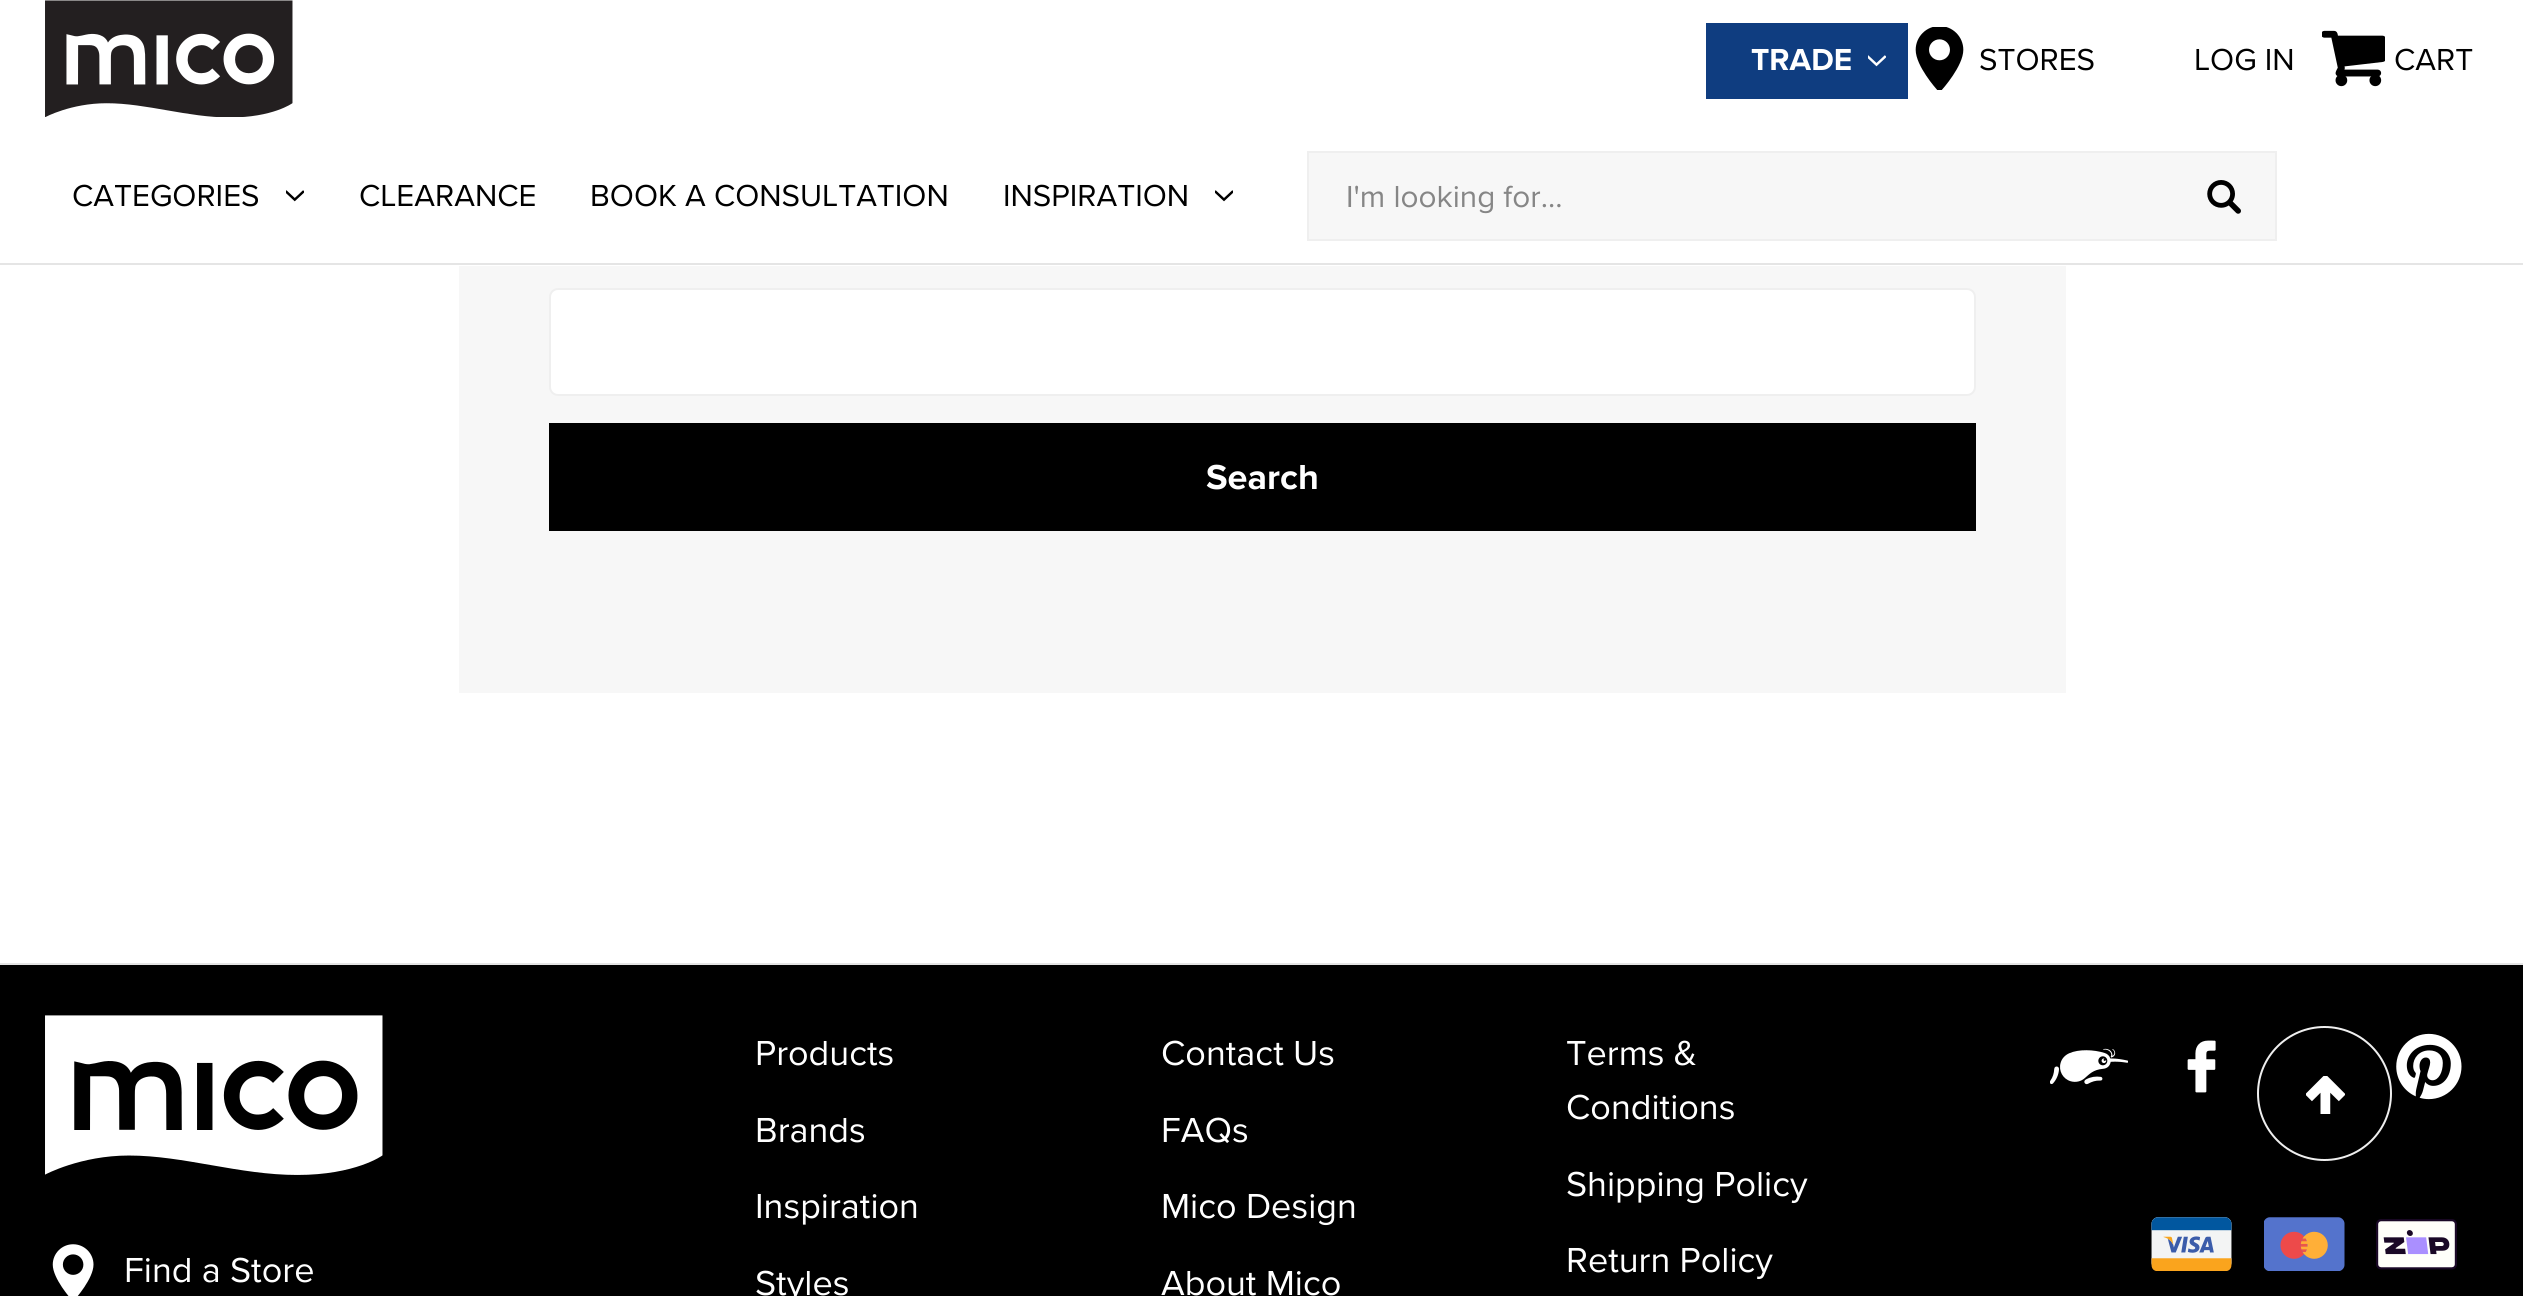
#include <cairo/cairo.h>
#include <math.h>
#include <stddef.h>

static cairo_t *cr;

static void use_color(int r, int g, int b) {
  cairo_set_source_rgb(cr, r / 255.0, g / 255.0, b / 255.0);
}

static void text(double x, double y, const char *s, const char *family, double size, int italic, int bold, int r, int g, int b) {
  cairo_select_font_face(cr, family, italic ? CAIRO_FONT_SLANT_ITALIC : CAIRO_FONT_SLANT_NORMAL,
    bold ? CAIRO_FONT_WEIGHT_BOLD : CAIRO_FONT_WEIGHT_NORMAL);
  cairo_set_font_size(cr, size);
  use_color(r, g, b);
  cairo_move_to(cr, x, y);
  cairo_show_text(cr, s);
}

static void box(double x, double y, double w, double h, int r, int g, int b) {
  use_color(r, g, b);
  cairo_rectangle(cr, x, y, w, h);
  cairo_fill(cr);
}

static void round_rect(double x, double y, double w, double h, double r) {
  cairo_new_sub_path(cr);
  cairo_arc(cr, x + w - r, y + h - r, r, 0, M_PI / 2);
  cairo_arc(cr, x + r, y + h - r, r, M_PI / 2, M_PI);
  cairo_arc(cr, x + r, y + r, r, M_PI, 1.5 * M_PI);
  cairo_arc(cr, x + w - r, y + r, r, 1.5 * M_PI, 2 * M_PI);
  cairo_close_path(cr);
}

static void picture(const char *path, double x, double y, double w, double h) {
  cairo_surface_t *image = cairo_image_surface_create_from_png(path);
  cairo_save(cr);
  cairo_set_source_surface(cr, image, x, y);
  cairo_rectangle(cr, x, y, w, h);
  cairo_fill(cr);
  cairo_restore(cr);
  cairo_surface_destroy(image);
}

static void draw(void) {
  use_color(255, 255, 255);
  cairo_paint(cr);
  box(0, 263, 2523, 2, 229, 229, 229);
  picture("img_01.png", 45, 0, 248, 117);
  box(1706, 23, 202, 76, 15, 61, 128);
  picture("img_02.png", 1868, 55, 18, 12);
  picture("img_03.png", 1915, 27, 49, 63);
  picture("img_04.png", 2322, 30, 63, 57);
  picture("img_05.png", 286, 190, 18, 12);
  picture("img_06.png", 1215, 190, 18, 12);
  box(1309, 153, 966, 86, 247, 247, 247);
  box(1307, 151, 970, 2, 239, 239, 239);
  box(1307, 239, 867, 2, 239, 239, 239);
  box(1307, 151, 2, 90, 239, 239, 239);
  box(2275, 151, 2, 90, 239, 239, 239);
  box(2174, 239, 103, 2, 239, 239, 239);
  picture("img_07.png", 2207, 180, 34, 34);
  box(459, 266, 1607, 427, 247, 247, 247);
  use_color(255, 255, 255);
  round_rect(550, 289, 1425, 106, 8);
  cairo_fill_preserve(cr);
  use_color(239, 239, 239);
  cairo_stroke(cr);
  box(549, 423, 1427, 108, 0, 0, 0);
  box(0, 965, 2523, 331, 0, 0, 0);
  box(0, 963, 2523, 2, 229, 229, 229);
  picture("img_08.png", 45, 1015, 338, 160);
  picture("img_09.png", 52, 1244, 42, 52);
  picture("img_10.png", 2050, 1048, 78, 37);
  picture("img_11.png", 2187, 1040, 29, 53);
  picture("img_12.png", 2396, 1033, 66, 67);
  picture("img_13.png", 2151, 1217, 81, 54);
  picture("img_14.png", 2264, 1217, 81, 54);
  picture("img_15.png", 2376, 1219, 81, 51);
  cairo_arc(cr, 2324.5, 1093.5, 66.5, 0, 2 * M_PI);
  use_color(239, 239, 239);
  cairo_stroke(cr);
  picture("img_16.png", 2306, 1076, 39, 38);
  text(1751, 70, "TRADE", "Proxima Nova", 31.5, 0, 1, 255, 255, 255);
  text(1979, 70, "STORES", "Proxima Nova", 31.5, 0, 0, 0, 0, 0);
  text(2194, 70, "LOG IN", "Proxima Nova", 31.5, 0, 0, 0, 0, 0);
  text(2394, 70, "CART", "Proxima Nova", 31.5, 0, 0, 0, 0, 0);
  text(72, 206, "CATEGORIES", "Proxima Nova", 31.5, 0, 0, 0, 0, 0);
  text(359, 206, "CLEARANCE", "Proxima Nova", 31.5, 0, 0, 0, 0, 0);
  text(590, 206, "BOOK A CONSULTATION", "Proxima Nova", 31.5, 0, 0, 0, 0, 0);
  text(1003, 206, "INSPIRATION", "Proxima Nova", 31.5, 0, 0, 0, 0, 0);
  text(1346, 207, "I'm looking for...", "Proxima Nova", 31.5, 0, 0, 134, 134, 134);
  text(1206, 489, "Search", "Proxima Nova", 36, 0, 1, 255, 255, 255);
  text(124, 1282, "Find a Store", "Proxima Nova", 36, 0, 0, 255, 255, 255);
  text(755, 1065, "Products", "Proxima Nova", 36, 0, 0, 255, 255, 255);
  text(1161, 1065, "Contact Us", "Proxima Nova", 36, 0, 0, 255, 255, 255);
  text(1566, 1065, "Terms &", "Proxima Nova", 36, 0, 0, 255, 255, 255);
  text(1566, 1119, "Conditions", "Proxima Nova", 36, 0, 0, 255, 255, 255);
  text(755, 1142, "Brands", "Proxima Nova", 36, 0, 0, 255, 255, 255);
  text(1161, 1142, "FAQs", "Proxima Nova", 36, 0, 0, 255, 255, 255);
  text(1566, 1196, "Shipping Policy", "Proxima Nova", 36, 0, 0, 255, 255, 255);
  text(755, 1218, "Inspiration", "Proxima Nova", 36, 0, 0, 255, 255, 255);
  text(1161, 1218, "Mico Design", "Proxima Nova", 36, 0, 0, 255, 255, 255);
  text(1566, 1272, "Return Policy", "Proxima Nova", 36, 0, 0, 255, 255, 255);
  text(755, 1295, "Styles", "Proxima Nova", 36, 0, 0, 255, 255, 255);
  text(1161, 1295, "About Mico", "Proxima Nova", 36, 0, 0, 255, 255, 255);
}

int main(void) {
  cairo_surface_t *surface = cairo_image_surface_create(CAIRO_FORMAT_RGB24, 2523, 1296);
  cr = cairo_create(surface);
  cairo_font_options_t *options = cairo_font_options_create();
  cairo_font_options_set_hint_metrics(options, CAIRO_HINT_METRICS_OFF);
  cairo_font_options_set_hint_style(options, CAIRO_HINT_STYLE_NONE);
  cairo_set_font_options(cr, options);
  cairo_set_miter_limit(cr, 4);
  draw();
  cairo_surface_write_to_png(surface, "out.png");
  cairo_font_options_destroy(options);
  cairo_destroy(cr);
  cairo_surface_destroy(surface);
  return 0;
}
